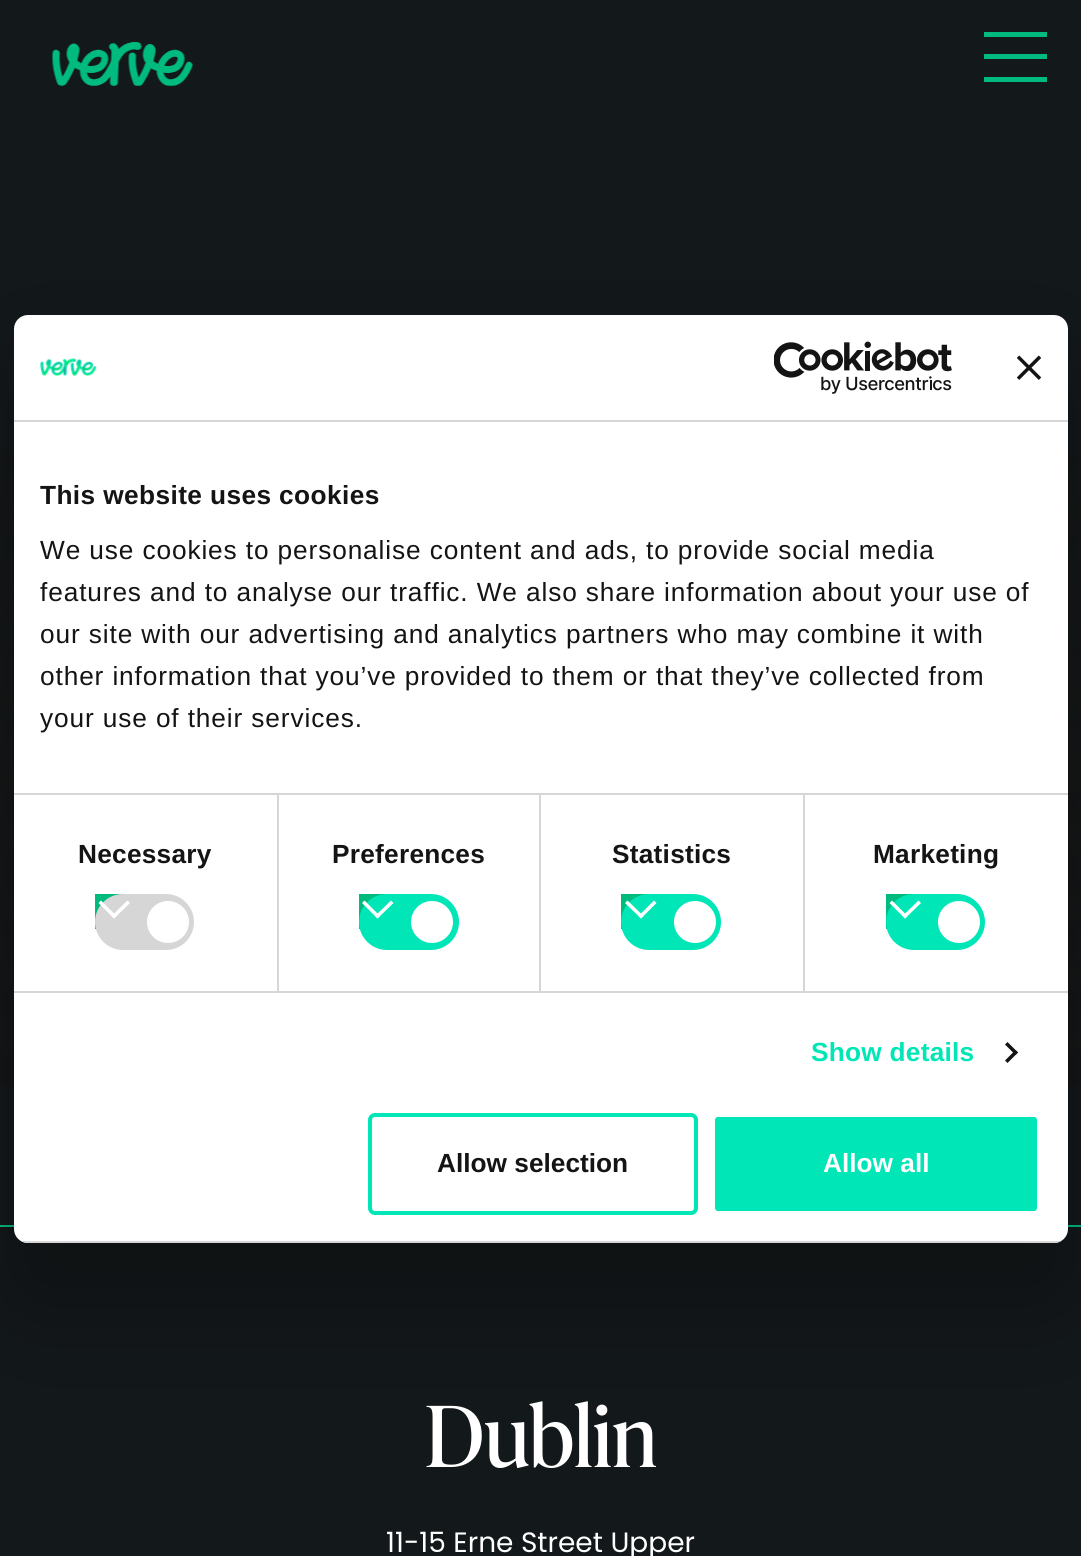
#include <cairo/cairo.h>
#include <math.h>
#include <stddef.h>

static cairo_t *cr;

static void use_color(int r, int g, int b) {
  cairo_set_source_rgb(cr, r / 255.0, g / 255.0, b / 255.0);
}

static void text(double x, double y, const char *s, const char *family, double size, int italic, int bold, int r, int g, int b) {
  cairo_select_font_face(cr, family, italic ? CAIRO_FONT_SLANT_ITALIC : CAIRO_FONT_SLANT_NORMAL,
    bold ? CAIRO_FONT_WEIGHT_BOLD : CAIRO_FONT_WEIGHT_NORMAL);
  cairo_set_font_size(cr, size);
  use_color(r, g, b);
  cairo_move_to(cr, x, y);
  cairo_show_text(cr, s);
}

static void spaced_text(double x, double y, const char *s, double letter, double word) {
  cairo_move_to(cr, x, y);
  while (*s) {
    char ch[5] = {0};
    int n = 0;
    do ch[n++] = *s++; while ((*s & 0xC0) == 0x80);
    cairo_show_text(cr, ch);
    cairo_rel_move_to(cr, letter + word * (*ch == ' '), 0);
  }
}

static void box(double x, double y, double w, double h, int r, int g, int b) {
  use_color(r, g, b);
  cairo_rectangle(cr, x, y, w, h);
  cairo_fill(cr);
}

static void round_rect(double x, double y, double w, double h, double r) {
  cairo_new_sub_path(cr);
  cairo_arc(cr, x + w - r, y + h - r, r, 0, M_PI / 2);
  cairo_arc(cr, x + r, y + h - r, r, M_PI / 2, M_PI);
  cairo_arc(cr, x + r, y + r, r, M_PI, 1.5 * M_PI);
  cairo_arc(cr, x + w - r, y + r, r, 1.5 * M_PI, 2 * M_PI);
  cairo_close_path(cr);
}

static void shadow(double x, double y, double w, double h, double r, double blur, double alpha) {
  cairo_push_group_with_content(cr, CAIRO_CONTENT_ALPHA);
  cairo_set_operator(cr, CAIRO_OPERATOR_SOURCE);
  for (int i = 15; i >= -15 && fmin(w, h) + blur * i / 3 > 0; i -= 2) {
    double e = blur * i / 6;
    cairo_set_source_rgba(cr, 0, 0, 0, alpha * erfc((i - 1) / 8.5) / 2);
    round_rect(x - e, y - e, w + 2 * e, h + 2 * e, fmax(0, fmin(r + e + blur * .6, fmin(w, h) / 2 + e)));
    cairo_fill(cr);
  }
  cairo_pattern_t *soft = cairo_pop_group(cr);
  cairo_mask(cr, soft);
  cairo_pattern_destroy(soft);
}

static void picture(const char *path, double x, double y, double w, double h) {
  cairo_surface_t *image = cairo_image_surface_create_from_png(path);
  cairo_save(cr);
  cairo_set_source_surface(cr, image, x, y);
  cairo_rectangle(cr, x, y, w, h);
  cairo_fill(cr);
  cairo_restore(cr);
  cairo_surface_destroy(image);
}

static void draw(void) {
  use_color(19, 24, 26);
  cairo_paint(cr);
  picture("img_01.png", 52, 42, 141, 44);
  box(984, 32, 63, 5, 0, 186, 126);
  box(984, 54, 63, 5, 0, 186, 126);
  box(984, 77, 63, 5, 0, 186, 126);
  picture("img_02.png", 0, 454, 1081, 632);
  box(0, 1225, 1081, 2, 0, 186, 126);
  use_color(0, 0, 0);
  shadow(14, 371, 1054, 928, 14, 59.5, 0.3);
  use_color(255, 255, 255);
  round_rect(14, 315, 1054, 928, 14);
  cairo_fill(cr);
  box(14, 420, 1054, 2, 214, 214, 214);
  picture("img_03.png", 40, 358, 57, 19);
  picture("img_04.png", 774, 341, 178, 53);
  picture("img_05.png", 1017, 355, 24, 25);
  box(14, 793, 1054, 2, 214, 214, 214);
  box(14, 991, 1054, 2, 214, 214, 214);
  box(277, 795, 2, 196, 214, 214, 214);
  box(95, 894, 28, 35, 0, 186, 126);
  use_color(214, 214, 214);
  round_rect(95, 894, 99, 56, 28);
  cairo_fill(cr);
  use_color(255, 255, 255);
  cairo_new_path(cr);
  cairo_move_to(cr, 127.5, 900.5);
  cairo_line_to(cr, 130, 903);
  cairo_line_to(cr, 114, 918.5);
  cairo_line_to(cr, 111.5, 916);
  cairo_close_path(cr);
  cairo_fill(cr);
  cairo_new_path(cr);
  cairo_move_to(cr, 101, 900.5);
  cairo_line_to(cr, 116.5, 916);
  cairo_line_to(cr, 114, 918.5);
  cairo_line_to(cr, 98.5, 903);
  cairo_close_path(cr);
  cairo_fill(cr);
  cairo_arc(cr, 168, 922, 21, 0, 2 * M_PI);
  cairo_fill(cr);
  box(539, 795, 2, 196, 214, 214, 214);
  box(359, 894, 28, 35, 0, 186, 126);
  use_color(0, 230, 182);
  round_rect(359, 894, 100, 56, 28);
  cairo_fill(cr);
  use_color(255, 255, 255);
  cairo_new_path(cr);
  cairo_move_to(cr, 391, 900.5);
  cairo_line_to(cr, 393.5, 903);
  cairo_line_to(cr, 377.5, 918.5);
  cairo_line_to(cr, 375, 916);
  cairo_close_path(cr);
  cairo_fill(cr);
  cairo_new_path(cr);
  cairo_move_to(cr, 364.5, 900.5);
  cairo_line_to(cr, 380, 916);
  cairo_line_to(cr, 377.5, 918.5);
  cairo_line_to(cr, 362, 903);
  cairo_close_path(cr);
  cairo_fill(cr);
  cairo_arc(cr, 432, 922, 21, 0, 2 * M_PI);
  cairo_fill(cr);
  box(803, 795, 2, 196, 214, 214, 214);
  box(621, 894, 28, 35, 0, 186, 126);
  use_color(0, 230, 182);
  round_rect(621, 894, 100, 56, 28);
  cairo_fill(cr);
  use_color(255, 255, 255);
  cairo_new_path(cr);
  cairo_move_to(cr, 654, 900.5);
  cairo_line_to(cr, 656.5, 903);
  cairo_line_to(cr, 641, 918.5);
  cairo_line_to(cr, 638.5, 916);
  cairo_close_path(cr);
  cairo_fill(cr);
  cairo_new_path(cr);
  cairo_move_to(cr, 627.5, 900.5);
  cairo_line_to(cr, 643.5, 916);
  cairo_line_to(cr, 641, 918.5);
  cairo_line_to(cr, 625, 903);
  cairo_close_path(cr);
  cairo_fill(cr);
  cairo_arc(cr, 695, 922, 21, 0, 2 * M_PI);
  cairo_fill(cr);
  box(886, 894, 28, 35, 0, 186, 126);
  use_color(0, 230, 182);
  round_rect(886, 894, 99, 56, 28);
  cairo_fill(cr);
  use_color(255, 255, 255);
  cairo_new_path(cr);
  cairo_move_to(cr, 918.5, 900.5);
  cairo_line_to(cr, 921, 903);
  cairo_line_to(cr, 905, 918.5);
  cairo_line_to(cr, 902.5, 916);
  cairo_close_path(cr);
  cairo_fill(cr);
  cairo_new_path(cr);
  cairo_move_to(cr, 892, 900.5);
  cairo_line_to(cr, 907.5, 916);
  cairo_line_to(cr, 905, 918.5);
  cairo_line_to(cr, 889.5, 903);
  cairo_close_path(cr);
  cairo_fill(cr);
  cairo_arc(cr, 959, 922, 21, 0, 2 * M_PI);
  cairo_fill(cr);
  use_color(20, 20, 20);
  cairo_new_path(cr);
  cairo_move_to(cr, 1007.5, 1042);
  cairo_line_to(cr, 1018, 1052.5);
  cairo_line_to(cr, 1015.5, 1055);
  cairo_line_to(cr, 1005, 1044.5);
  cairo_close_path(cr);
  cairo_fill(cr);
  cairo_new_path(cr);
  cairo_move_to(cr, 1015.5, 1050);
  cairo_line_to(cr, 1018, 1052.5);
  cairo_line_to(cr, 1007.5, 1063);
  cairo_line_to(cr, 1005, 1060.5);
  cairo_close_path(cr);
  cairo_fill(cr);
  cairo_save(cr);
  round_rect(14, 315, 1054, 928, 14);
  cairo_clip(cr);
  box(14, 1241, 1054, 2, 214, 214, 214);
  cairo_restore(cr);
  round_rect(370, 1115, 326, 98, 5);
  use_color(0, 230, 182);
  cairo_set_line_width(cr, 4);
  cairo_stroke(cr);
  round_rect(713, 1115, 326, 98, 5);
  cairo_fill_preserve(cr);
  use_color(255, 255, 255);
  cairo_stroke(cr);
  cairo_select_font_face(cr, "Liberation Sans", CAIRO_FONT_SLANT_NORMAL, CAIRO_FONT_WEIGHT_BOLD);
  cairo_set_font_size(cr, 26.25);
  use_color(20, 20, 20);
  spaced_text(40, 504, "This website uses cookies", 0.4, 0);
  cairo_select_font_face(cr, "Liberation Sans", CAIRO_FONT_SLANT_NORMAL, CAIRO_FONT_WEIGHT_NORMAL);
  spaced_text(40, 559, "We use cookies to personalise content and ads, to provide social media", 0.88, 0);
  spaced_text(40, 601, "features and to analyse our traffic. We also share information about your use of", 0.88, 0);
  spaced_text(40, 643, "our site with our advertising and analytics partners who may combine it with", 0.88, 0);
  spaced_text(40, 685, "other information that you’ve provided to them or that they’ve collected from", 0.88, 0);
  spaced_text(40, 727, "your use of their services.", 0.88, 0);
  cairo_select_font_face(cr, "Liberation Sans", CAIRO_FONT_SLANT_NORMAL, CAIRO_FONT_WEIGHT_BOLD);
  spaced_text(78, 863, "Necessary", 0.25, 0);
  spaced_text(332, 863, "Preferences", 0.25, 0);
  spaced_text(612, 863, "Statistics", 0.25, 0);
  spaced_text(873, 863, "Marketing", 0.25, 0);
  use_color(0, 230, 182);
  spaced_text(811, 1061, "Show details", 0.25, 0);
  text(437, 1172, "Allow selection", "Liberation Sans", 26.25, 0, 1, 20, 20, 20);
  text(823, 1172, "Allow all", "Liberation Sans", 26.25, 0, 1, 255, 255, 255);
  text(425, 1467, "Dublin", "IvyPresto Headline", 84, 0, 0, 255, 255, 255);
  text(386, 1552, "11-15 Erne Street Upper", "Poppins", 28, 0, 0, 255, 255, 255);
}

int main(void) {
  cairo_surface_t *surface = cairo_image_surface_create(CAIRO_FORMAT_RGB24, 1081, 1556);
  cr = cairo_create(surface);
  cairo_font_options_t *options = cairo_font_options_create();
  cairo_font_options_set_hint_metrics(options, CAIRO_HINT_METRICS_OFF);
  cairo_font_options_set_hint_style(options, CAIRO_HINT_STYLE_NONE);
  cairo_set_font_options(cr, options);
  cairo_set_miter_limit(cr, 4);
  draw();
  cairo_surface_write_to_png(surface, "out.png");
  cairo_font_options_destroy(options);
  cairo_destroy(cr);
  cairo_surface_destroy(surface);
  return 0;
}
